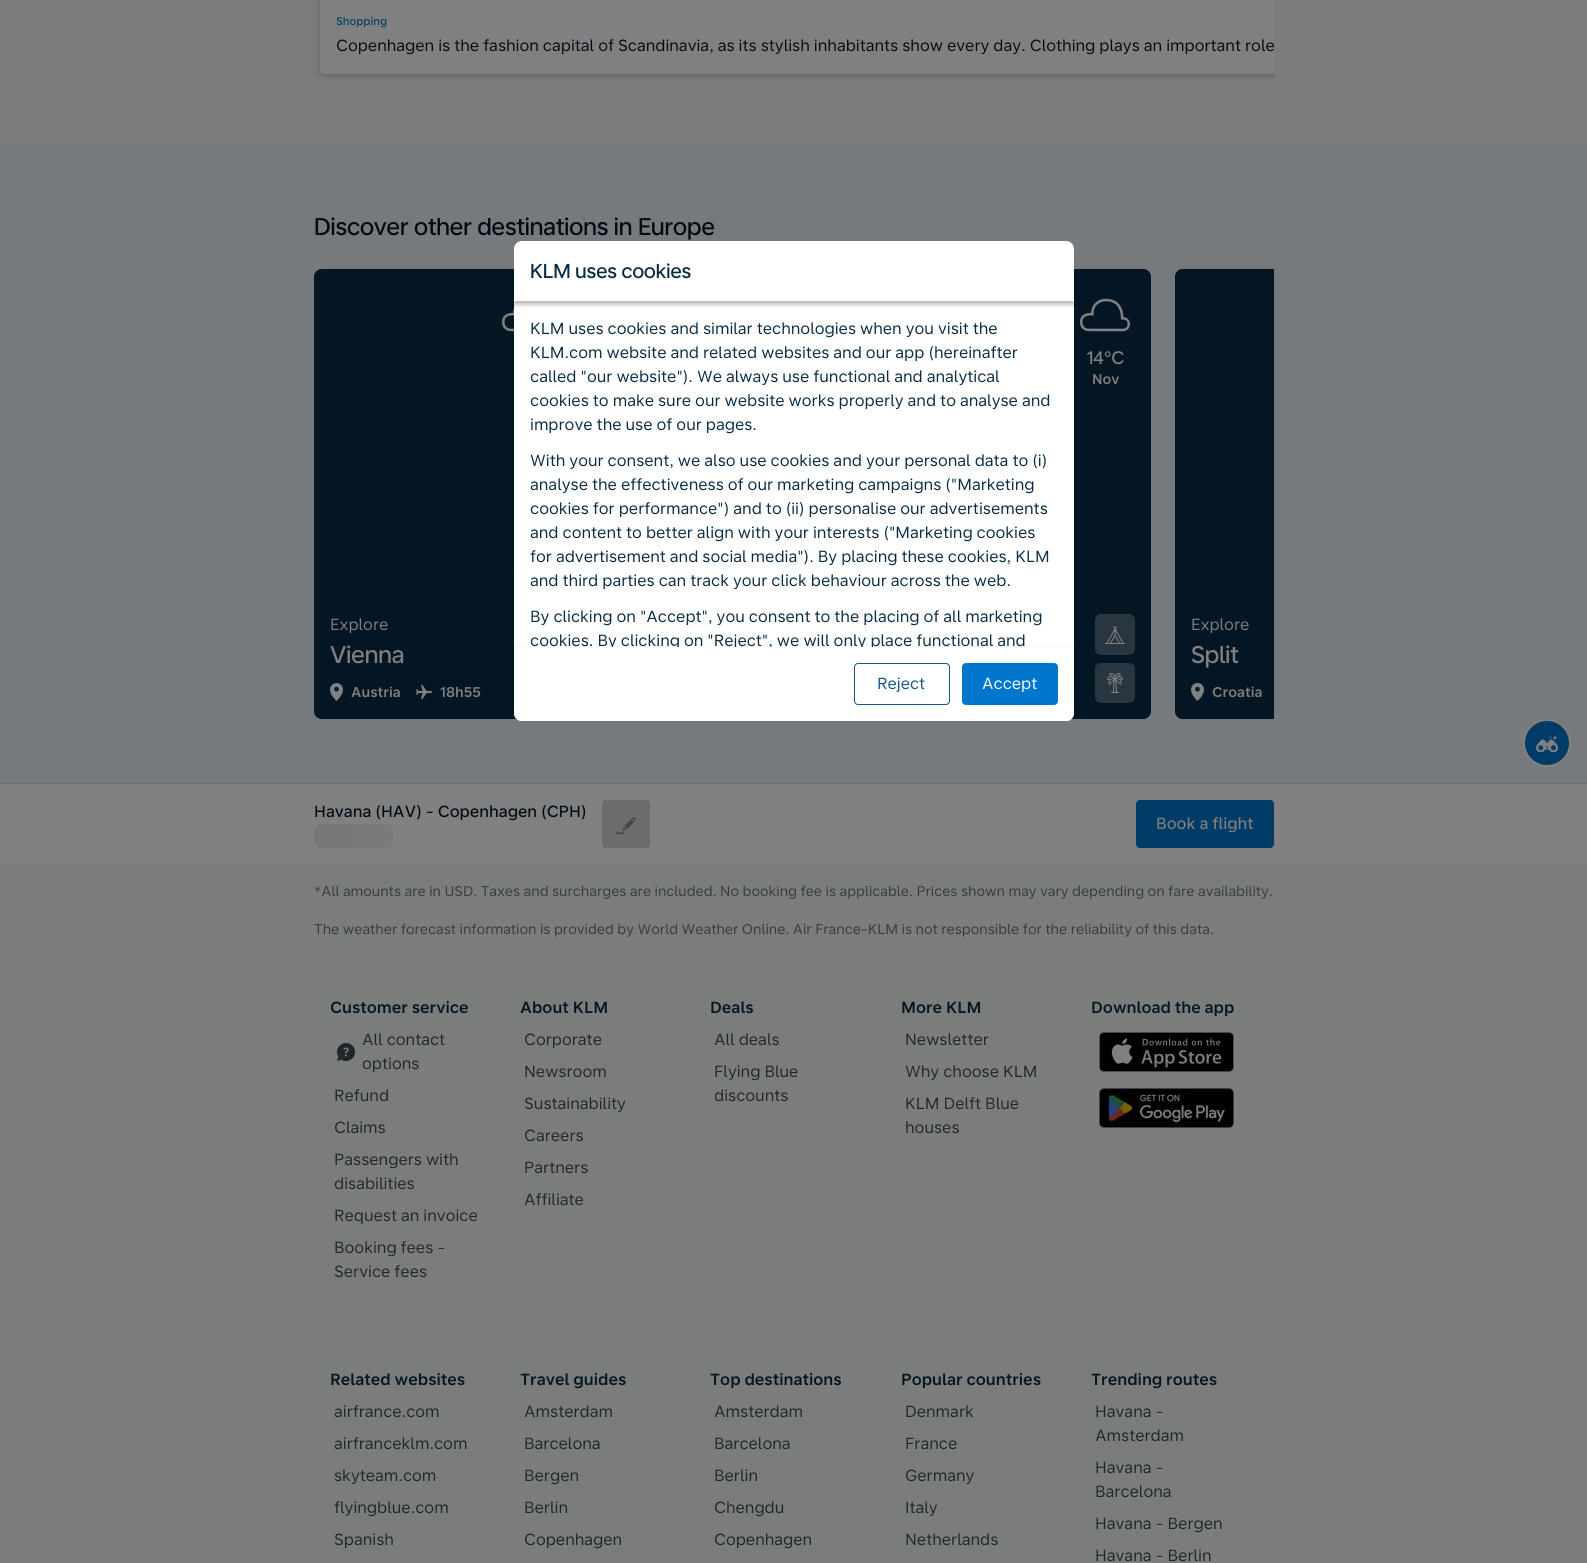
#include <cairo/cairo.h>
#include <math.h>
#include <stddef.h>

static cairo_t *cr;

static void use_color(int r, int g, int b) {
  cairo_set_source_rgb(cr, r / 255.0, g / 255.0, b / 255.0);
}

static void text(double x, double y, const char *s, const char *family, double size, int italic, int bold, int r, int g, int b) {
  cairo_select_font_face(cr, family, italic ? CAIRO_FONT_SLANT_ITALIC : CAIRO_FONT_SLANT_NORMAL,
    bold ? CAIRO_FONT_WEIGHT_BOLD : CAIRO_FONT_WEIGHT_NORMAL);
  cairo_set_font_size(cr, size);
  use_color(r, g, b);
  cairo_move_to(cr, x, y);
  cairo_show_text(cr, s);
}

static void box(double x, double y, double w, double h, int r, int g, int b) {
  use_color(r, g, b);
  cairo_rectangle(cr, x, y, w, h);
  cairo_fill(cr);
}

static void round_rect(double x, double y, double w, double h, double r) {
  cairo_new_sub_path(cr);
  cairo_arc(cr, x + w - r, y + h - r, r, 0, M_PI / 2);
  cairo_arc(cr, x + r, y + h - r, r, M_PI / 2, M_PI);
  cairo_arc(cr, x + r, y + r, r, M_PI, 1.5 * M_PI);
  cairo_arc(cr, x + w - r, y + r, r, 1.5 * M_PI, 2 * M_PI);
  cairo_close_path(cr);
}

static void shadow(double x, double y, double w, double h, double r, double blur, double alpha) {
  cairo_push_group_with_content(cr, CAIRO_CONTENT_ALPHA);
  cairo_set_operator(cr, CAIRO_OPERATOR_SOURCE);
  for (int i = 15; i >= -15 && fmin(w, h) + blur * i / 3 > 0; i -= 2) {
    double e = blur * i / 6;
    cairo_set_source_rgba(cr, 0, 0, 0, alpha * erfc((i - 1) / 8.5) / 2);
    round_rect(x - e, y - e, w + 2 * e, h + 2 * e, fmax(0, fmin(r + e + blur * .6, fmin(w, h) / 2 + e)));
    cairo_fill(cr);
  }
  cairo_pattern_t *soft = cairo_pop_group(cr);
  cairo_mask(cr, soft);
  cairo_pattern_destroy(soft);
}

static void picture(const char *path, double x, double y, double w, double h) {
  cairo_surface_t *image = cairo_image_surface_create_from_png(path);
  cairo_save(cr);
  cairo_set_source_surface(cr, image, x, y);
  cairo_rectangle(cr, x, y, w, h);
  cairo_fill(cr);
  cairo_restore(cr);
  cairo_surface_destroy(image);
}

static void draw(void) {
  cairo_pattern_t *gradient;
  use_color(123, 124, 124);
  cairo_paint(cr);
  cairo_save(cr);
  cairo_rectangle(cr, 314, 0, 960, 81);
  cairo_clip(cr);
  use_color(0, 0, 0);
  shadow(319, -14, 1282, 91, 5, 3, 0.16);
  cairo_restore(cr);
  use_color(128, 128, 128);
  cairo_new_path(cr);
  cairo_move_to(cr, 324, -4);
  cairo_line_to(cr, 1274, -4);
  cairo_line_to(cr, 1274, 74);
  cairo_line_to(cr, 324, 74);
  cairo_curve_to(cr, 322, 74, 320, 72, 320, 70);
  cairo_line_to(cr, 320, 0);
  cairo_curve_to(cr, 320, -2, 322, -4, 324, -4);
  cairo_close_path(cr);
  cairo_fill(cr);
  box(0, 145, 1587, 638, 118, 122, 124);
  use_color(4, 22, 35);
  round_rect(887, 269, 264, 450, 8);
  cairo_fill(cr);
  gradient = cairo_pattern_create_linear(1019, 269, 1019, 719);
  cairo_pattern_add_color_stop_rgba(gradient, 0, 0.016, 0.086, 0.137, 0.6);
  cairo_pattern_add_color_stop_rgba(gradient, 0.16, 0.016, 0.086, 0.137, 0.36);
  cairo_pattern_add_color_stop_rgba(gradient, 0.3, 0.016, 0.086, 0.137, 0.12);
  cairo_pattern_add_color_stop_rgba(gradient, 0.4, 0.016, 0.086, 0.137, 0);
  cairo_pattern_add_color_stop_rgba(gradient, 0.5, 0.016, 0.086, 0.137, 0.12);
  cairo_pattern_add_color_stop_rgba(gradient, 0.65, 0.016, 0.086, 0.137, 0.36);
  cairo_pattern_add_color_stop_rgba(gradient, 1, 0.016, 0.086, 0.137, 0.6);
  cairo_set_source(cr, gradient);
  cairo_pattern_destroy(gradient);
  round_rect(887, 269, 264, 450, 8);
  cairo_fill(cr);
  picture("img_01.png", 1080, 298, 50, 34);
  use_color(41, 54, 63);
  round_rect(1095, 614, 40, 41, 6);
  cairo_fill(cr);
  picture("img_02.png", 1105, 626, 20, 18);
  round_rect(1095, 663, 40, 40, 6);
  cairo_fill(cr);
  picture("img_03.png", 1107, 673, 16, 20);
  use_color(4, 22, 35);
  round_rect(314, 269, 259, 450, 8);
  cairo_fill(cr);
  gradient = cairo_pattern_create_linear(444, 269, 444, 719);
  cairo_pattern_add_color_stop_rgba(gradient, 0, 0.016, 0.086, 0.137, 0.6);
  cairo_pattern_add_color_stop_rgba(gradient, 0.16, 0.016, 0.086, 0.137, 0.36);
  cairo_pattern_add_color_stop_rgba(gradient, 0.3, 0.016, 0.086, 0.137, 0.12);
  cairo_pattern_add_color_stop_rgba(gradient, 0.4, 0.016, 0.086, 0.137, 0);
  cairo_pattern_add_color_stop_rgba(gradient, 0.5, 0.016, 0.086, 0.137, 0.12);
  cairo_pattern_add_color_stop_rgba(gradient, 0.65, 0.016, 0.086, 0.137, 0.36);
  cairo_pattern_add_color_stop_rgba(gradient, 1, 0.016, 0.086, 0.137, 0.6);
  cairo_set_source(cr, gradient);
  cairo_pattern_destroy(gradient);
  round_rect(314, 269, 259, 450, 8);
  cairo_fill(cr);
  picture("img_04.png", 502, 308, 12, 24);
  picture("img_05.png", 330, 683, 13, 18);
  picture("img_06.png", 416, 684, 16, 16);
  use_color(4, 22, 35);
  cairo_new_path(cr);
  cairo_move_to(cr, 1183, 269);
  cairo_line_to(cr, 1274, 269);
  cairo_line_to(cr, 1274, 719);
  cairo_line_to(cr, 1183, 719);
  cairo_curve_to(cr, 1178.5, 719, 1175, 715.5, 1175, 711);
  cairo_line_to(cr, 1175, 277);
  cairo_curve_to(cr, 1175, 272.5, 1178.5, 269, 1183, 269);
  cairo_close_path(cr);
  cairo_fill(cr);
  gradient = cairo_pattern_create_linear(1305, 269, 1305, 719);
  cairo_pattern_add_color_stop_rgba(gradient, 0, 0.016, 0.086, 0.137, 0.6);
  cairo_pattern_add_color_stop_rgba(gradient, 0.16, 0.016, 0.086, 0.137, 0.36);
  cairo_pattern_add_color_stop_rgba(gradient, 0.3, 0.016, 0.086, 0.137, 0.12);
  cairo_pattern_add_color_stop_rgba(gradient, 0.4, 0.016, 0.086, 0.137, 0);
  cairo_pattern_add_color_stop_rgba(gradient, 0.5, 0.016, 0.086, 0.137, 0.12);
  cairo_pattern_add_color_stop_rgba(gradient, 0.65, 0.016, 0.086, 0.137, 0.36);
  cairo_pattern_add_color_stop_rgba(gradient, 1, 0.016, 0.086, 0.137, 0.6);
  cairo_set_source(cr, gradient);
  cairo_pattern_destroy(gradient);
  cairo_new_path(cr);
  cairo_move_to(cr, 1183, 269);
  cairo_line_to(cr, 1274, 269);
  cairo_line_to(cr, 1274, 719);
  cairo_line_to(cr, 1183, 719);
  cairo_curve_to(cr, 1178.5, 719, 1175, 715.5, 1175, 711);
  cairo_line_to(cr, 1175, 277);
  cairo_curve_to(cr, 1175, 272.5, 1178.5, 269, 1183, 269);
  cairo_close_path(cr);
  cairo_fill(cr);
  picture("img_05.png", 1191, 683, 13, 18);
  use_color(0, 60, 103);
  cairo_arc(cr, 1547, 743, 23, 0, 2 * M_PI);
  cairo_fill_preserve(cr);
  use_color(128, 128, 128);
  cairo_stroke(cr);
  picture("img_07.png", 1536, 735, 22, 17);
  box(0, 784, 1587, 80, 128, 128, 128);
  box(0, 783, 1587, 1, 106, 108, 109);
  use_color(117, 118, 118);
  round_rect(314, 824, 80, 24, 8);
  cairo_fill(cr);
  gradient = cairo_pattern_create_linear(314, 836, 514, 836);
  cairo_pattern_add_color_stop_rgba(gradient, 0, 0.502, 0.502, 0.502, 0);
  cairo_pattern_add_color_stop_rgba(gradient, 0.5, 0.502, 0.502, 0.502, 0.6);
  cairo_pattern_add_color_stop_rgba(gradient, 1, 0.502, 0.502, 0.502, 0);
  cairo_set_source(cr, gradient);
  cairo_pattern_destroy(gradient);
  round_rect(314, 824, 80, 24, 4);
  cairo_fill(cr);
  use_color(106, 108, 109);
  round_rect(602, 800, 48, 48, 4);
  cairo_fill(cr);
  picture("img_08.png", 616, 817, 20, 17);
  use_color(0, 60, 103);
  round_rect(1136, 800, 138, 48, 4);
  cairo_fill(cr);
  picture("img_09.png", 337, 1043, 18, 18);
  picture("img_10.png", 1099, 1032, 135, 40);
  picture("img_11.png", 1099, 1088, 135, 40);
  use_color(255, 255, 255);
  round_rect(514, 241, 560, 480, 8);
  cairo_fill(cr);
  cairo_save(cr);
  round_rect(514, 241, 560, 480, 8);
  cairo_clip(cr);
  cairo_rectangle(cr, 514, 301, 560, 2);
  cairo_clip(cr);
  use_color(0, 0, 0);
  shadow(514, 241, 560, 60, 0, 2, 0.12);
  cairo_restore(cr);
  cairo_save(cr);
  round_rect(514, 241, 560, 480, 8);
  cairo_clip(cr);
  cairo_rectangle(cr, 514, 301, 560, 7);
  cairo_clip(cr);
  use_color(0, 0, 0);
  shadow(514, 245, 560, 60, 0, 2, 0.24);
  cairo_restore(cr);
  cairo_save(cr);
  round_rect(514, 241, 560, 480, 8);
  cairo_clip(cr);
  use_color(0, 0, 0);
  shadow(514, 648, 560, 74, 0, 2.5, 0.12);
  cairo_restore(cr);
  cairo_new_path(cr);
  cairo_move_to(cr, 514, 647);
  cairo_line_to(cr, 1074, 647);
  cairo_line_to(cr, 1074, 713);
  cairo_curve_to(cr, 1074, 717.5, 1070.5, 721, 1066, 721);
  cairo_line_to(cr, 522, 721);
  cairo_curve_to(cr, 517.5, 721, 514, 717.5, 514, 713);
  cairo_close_path(cr);
  cairo_fill(cr);
  round_rect(854.5, 663.5, 95, 41, 3.5);
  use_color(14, 87, 140);
  cairo_set_line_width(cr, 1);
  cairo_stroke(cr);
  use_color(0, 119, 205);
  round_rect(962, 663, 96, 42, 4);
  cairo_fill(cr);
  text(336, 25, "Shopping", "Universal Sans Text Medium", 11, 0, 0, 0, 60, 103);
  text(336, 51, "Copenhagen is the fashion capital of Scandinavia, as its stylish inhabitants show every day. Clothing plays an important role", "Universal Sans Text", 16, 0, 0, 0, 11, 20);
  text(314, 235, "Discover other destinations in Europe", "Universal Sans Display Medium", 24, 0, 0, 0, 11, 20);
  text(1087, 364, "14°C", "Universal Sans Display Medium", 18, 0, 0, 128, 128, 128);
  text(1092, 384, "Nov", "Universal Sans Text", 14, 0, 1, 128, 128, 128);
  text(330, 630, "Explore", "Universal Sans Text", 16, 0, 0, 128, 128, 128);
  text(330, 663, "Vienna", "Universal Sans Display Medium", 24, 0, 0, 128, 128, 128);
  text(351, 697, "Austria", "Universal Sans Text", 14, 0, 1, 128, 128, 128);
  text(440, 697, "18h55", "Universal Sans Text", 14, 0, 1, 128, 128, 128);
  text(1191, 630, "Explore", "Universal Sans Text", 16, 0, 0, 128, 128, 128);
  text(1191, 663, "Split", "Universal Sans Display Medium", 24, 0, 0, 128, 128, 128);
  text(1212, 697, "Croatia", "Universal Sans Text", 14, 0, 1, 128, 128, 128);
  text(314, 817, "Havana (HAV) - Copenhagen (CPH)", "Universal Sans Text Medium", 16, 0, 0, 0, 11, 20);
  text(1156, 829, "Book a flight", "Universal Sans Text Medium", 16, 0, 0, 128, 128, 128);
  text(314, 896, "*All amounts are in USD. Taxes and surcharges are included. No booking fee is applicable. Prices shown may vary depending on fare availability.", "Universal Sans Text", 14, 0, 0, 53, 59, 63);
  text(314, 934, "The weather forecast information is provided by World Weather Online. Air France-KLM is not responsible for the reliability of this data.", "Universal Sans Text", 14, 0, 0, 53, 59, 63);
  text(330, 1013, "Customer service", "Universal Sans Text", 16, 0, 1, 4, 22, 35);
  text(362, 1045, "All contact", "Universal Sans Text", 16, 0, 0, 32, 39, 44);
  text(362, 1069, "options", "Universal Sans Text", 16, 0, 0, 32, 39, 44);
  text(334, 1101, "Refund", "Universal Sans Text", 16, 0, 0, 32, 39, 44);
  text(334, 1133, "Claims", "Universal Sans Text", 16, 0, 0, 32, 39, 44);
  text(334, 1165, "Passengers with", "Universal Sans Text", 16, 0, 0, 32, 39, 44);
  text(334, 1189, "disabilities", "Universal Sans Text", 16, 0, 0, 32, 39, 44);
  text(334, 1221, "Request an invoice", "Universal Sans Text", 16, 0, 0, 32, 39, 44);
  text(334, 1253, "Booking fees -", "Universal Sans Text", 16, 0, 0, 32, 39, 44);
  text(334, 1277, "Service fees", "Universal Sans Text", 16, 0, 0, 32, 39, 44);
  text(520, 1013, "About KLM", "Universal Sans Text", 16, 0, 1, 4, 22, 35);
  text(524, 1045, "Corporate", "Universal Sans Text", 16, 0, 0, 32, 39, 44);
  text(524, 1077, "Newsroom", "Universal Sans Text", 16, 0, 0, 32, 39, 44);
  text(524, 1109, "Sustainability", "Universal Sans Text", 16, 0, 0, 32, 39, 44);
  text(524, 1141, "Careers", "Universal Sans Text", 16, 0, 0, 32, 39, 44);
  text(524, 1173, "Partners", "Universal Sans Text", 16, 0, 0, 32, 39, 44);
  text(524, 1205, "Affiliate", "Universal Sans Text", 16, 0, 0, 32, 39, 44);
  text(710, 1013, "Deals", "Universal Sans Text", 16, 0, 1, 4, 22, 35);
  text(714, 1045, "All deals", "Universal Sans Text", 16, 0, 0, 32, 39, 44);
  text(714, 1077, "Flying Blue", "Universal Sans Text", 16, 0, 0, 32, 39, 44);
  text(714, 1101, "discounts", "Universal Sans Text", 16, 0, 0, 32, 39, 44);
  text(901, 1013, "More KLM", "Universal Sans Text", 16, 0, 1, 4, 22, 35);
  text(905, 1045, "Newsletter", "Universal Sans Text", 16, 0, 0, 32, 39, 44);
  text(905, 1077, "Why choose KLM", "Universal Sans Text", 16, 0, 0, 32, 39, 44);
  text(905, 1109, "KLM Delft Blue", "Universal Sans Text", 16, 0, 0, 32, 39, 44);
  text(905, 1133, "houses", "Universal Sans Text", 16, 0, 0, 32, 39, 44);
  text(1091, 1013, "Download the app", "Universal Sans Text", 16, 0, 1, 4, 22, 35);
  text(330, 1385, "Related websites", "Universal Sans Text", 16, 0, 1, 4, 22, 35);
  text(334, 1417, "airfrance.com", "Universal Sans Text", 16, 0, 0, 32, 39, 44);
  text(334, 1449, "airfranceklm.com", "Universal Sans Text", 16, 0, 0, 32, 39, 44);
  text(334, 1481, "skyteam.com", "Universal Sans Text", 16, 0, 0, 32, 39, 44);
  text(334, 1513, "flyingblue.com", "Universal Sans Text", 16, 0, 0, 32, 39, 44);
  text(334, 1545, "Spanish", "Universal Sans Text", 16, 0, 0, 32, 39, 44);
  text(520, 1385, "Travel guides", "Universal Sans Text", 16, 0, 1, 4, 22, 35);
  text(524, 1417, "Amsterdam", "Universal Sans Text", 16, 0, 0, 32, 39, 44);
  text(524, 1449, "Barcelona", "Universal Sans Text", 16, 0, 0, 32, 39, 44);
  text(524, 1481, "Bergen", "Universal Sans Text", 16, 0, 0, 32, 39, 44);
  text(524, 1513, "Berlin", "Universal Sans Text", 16, 0, 0, 32, 39, 44);
  text(524, 1545, "Copenhagen", "Universal Sans Text", 16, 0, 0, 32, 39, 44);
  text(710, 1385, "Top destinations", "Universal Sans Text", 16, 0, 1, 4, 22, 35);
  text(714, 1417, "Amsterdam", "Universal Sans Text", 16, 0, 0, 32, 39, 44);
  text(714, 1449, "Barcelona", "Universal Sans Text", 16, 0, 0, 32, 39, 44);
  text(714, 1481, "Berlin", "Universal Sans Text", 16, 0, 0, 32, 39, 44);
  text(714, 1513, "Chengdu", "Universal Sans Text", 16, 0, 0, 32, 39, 44);
  text(714, 1545, "Copenhagen", "Universal Sans Text", 16, 0, 0, 32, 39, 44);
  text(901, 1385, "Popular countries", "Universal Sans Text", 16, 0, 1, 4, 22, 35);
  text(905, 1417, "Denmark", "Universal Sans Text", 16, 0, 0, 32, 39, 44);
  text(905, 1449, "France", "Universal Sans Text", 16, 0, 0, 32, 39, 44);
  text(905, 1481, "Germany", "Universal Sans Text", 16, 0, 0, 32, 39, 44);
  text(905, 1513, "Italy", "Universal Sans Text", 16, 0, 0, 32, 39, 44);
  text(905, 1545, "Netherlands", "Universal Sans Text", 16, 0, 0, 32, 39, 44);
  text(1091, 1385, "Trending routes", "Universal Sans Text", 16, 0, 1, 4, 22, 35);
  text(1095, 1417, "Havana -", "Universal Sans Text", 16, 0, 0, 32, 39, 44);
  text(1095, 1441, "Amsterdam", "Universal Sans Text", 16, 0, 0, 32, 39, 44);
  text(1095, 1473, "Havana -", "Universal Sans Text", 16, 0, 0, 32, 39, 44);
  text(1095, 1497, "Barcelona", "Universal Sans Text", 16, 0, 0, 32, 39, 44);
  text(1095, 1529, "Havana - Bergen", "Universal Sans Text", 16, 0, 0, 32, 39, 44);
  text(1095, 1561, "Havana - Berlin", "Universal Sans Text", 16, 0, 0, 32, 39, 44);
  text(530, 278, "KLM uses cookies", "Universal Sans Display Medium", 20, 0, 0, 7, 43, 69);
  text(530, 334, "KLM uses cookies and similar technologies when you visit the", "Universal Sans Text", 16, 0, 0, 7, 43, 69);
  text(530, 358, "KLM.com website and related websites and our app (hereinafter", "Universal Sans Text", 16, 0, 0, 7, 43, 69);
  text(530, 382, "called \"our website\"). We always use functional and analytical", "Universal Sans Text", 16, 0, 0, 7, 43, 69);
  text(530, 406, "cookies to make sure our website works properly and to analyse and", "Universal Sans Text", 16, 0, 0, 7, 43, 69);
  text(530, 430, "improve the use of our pages.", "Universal Sans Text", 16, 0, 0, 7, 43, 69);
  text(530, 466, "With your consent, we also use cookies and your personal data to (i)", "Universal Sans Text", 16, 0, 0, 7, 43, 69);
  text(530, 490, "analyse the effectiveness of our marketing campaigns (\"Marketing", "Universal Sans Text", 16, 0, 0, 7, 43, 69);
  text(530, 514, "cookies for performance\") and to (ii) personalise our advertisements", "Universal Sans Text", 16, 0, 0, 7, 43, 69);
  text(530, 538, "and content to better align with your interests (\"Marketing cookies", "Universal Sans Text", 16, 0, 0, 7, 43, 69);
  text(530, 562, "for advertisement and social media\"). By placing these cookies, KLM", "Universal Sans Text", 16, 0, 0, 7, 43, 69);
  text(530, 586, "and third parties can track your click behaviour across the web.", "Universal Sans Text", 16, 0, 0, 7, 43, 69);
  text(530, 622, "By clicking on \"Accept\", you consent to the placing of all marketing", "Universal Sans Text", 16, 0, 0, 7, 43, 69);
  cairo_save(cr);
  cairo_rectangle(cr, 514, 301, 560, 346);
  cairo_clip(cr);
  text(530, 646, "cookies. By clicking on \"Reject\", we will only place functional and", "Universal Sans Text", 16, 0, 0, 7, 43, 69);
  cairo_restore(cr);
  text(877, 689, "Reject", "Universal Sans Text", 16, 0, 0, 14, 87, 140);
  text(982, 689, "Accept", "Universal Sans Text", 16, 0, 0, 255, 255, 255);
}

int main(void) {
  cairo_surface_t *surface = cairo_image_surface_create(CAIRO_FORMAT_RGB24, 1587, 1563);
  cr = cairo_create(surface);
  cairo_font_options_t *options = cairo_font_options_create();
  cairo_font_options_set_hint_metrics(options, CAIRO_HINT_METRICS_OFF);
  cairo_font_options_set_hint_style(options, CAIRO_HINT_STYLE_NONE);
  cairo_set_font_options(cr, options);
  cairo_set_miter_limit(cr, 4);
  draw();
  cairo_surface_write_to_png(surface, "out.png");
  cairo_font_options_destroy(options);
  cairo_destroy(cr);
  cairo_surface_destroy(surface);
  return 0;
}
